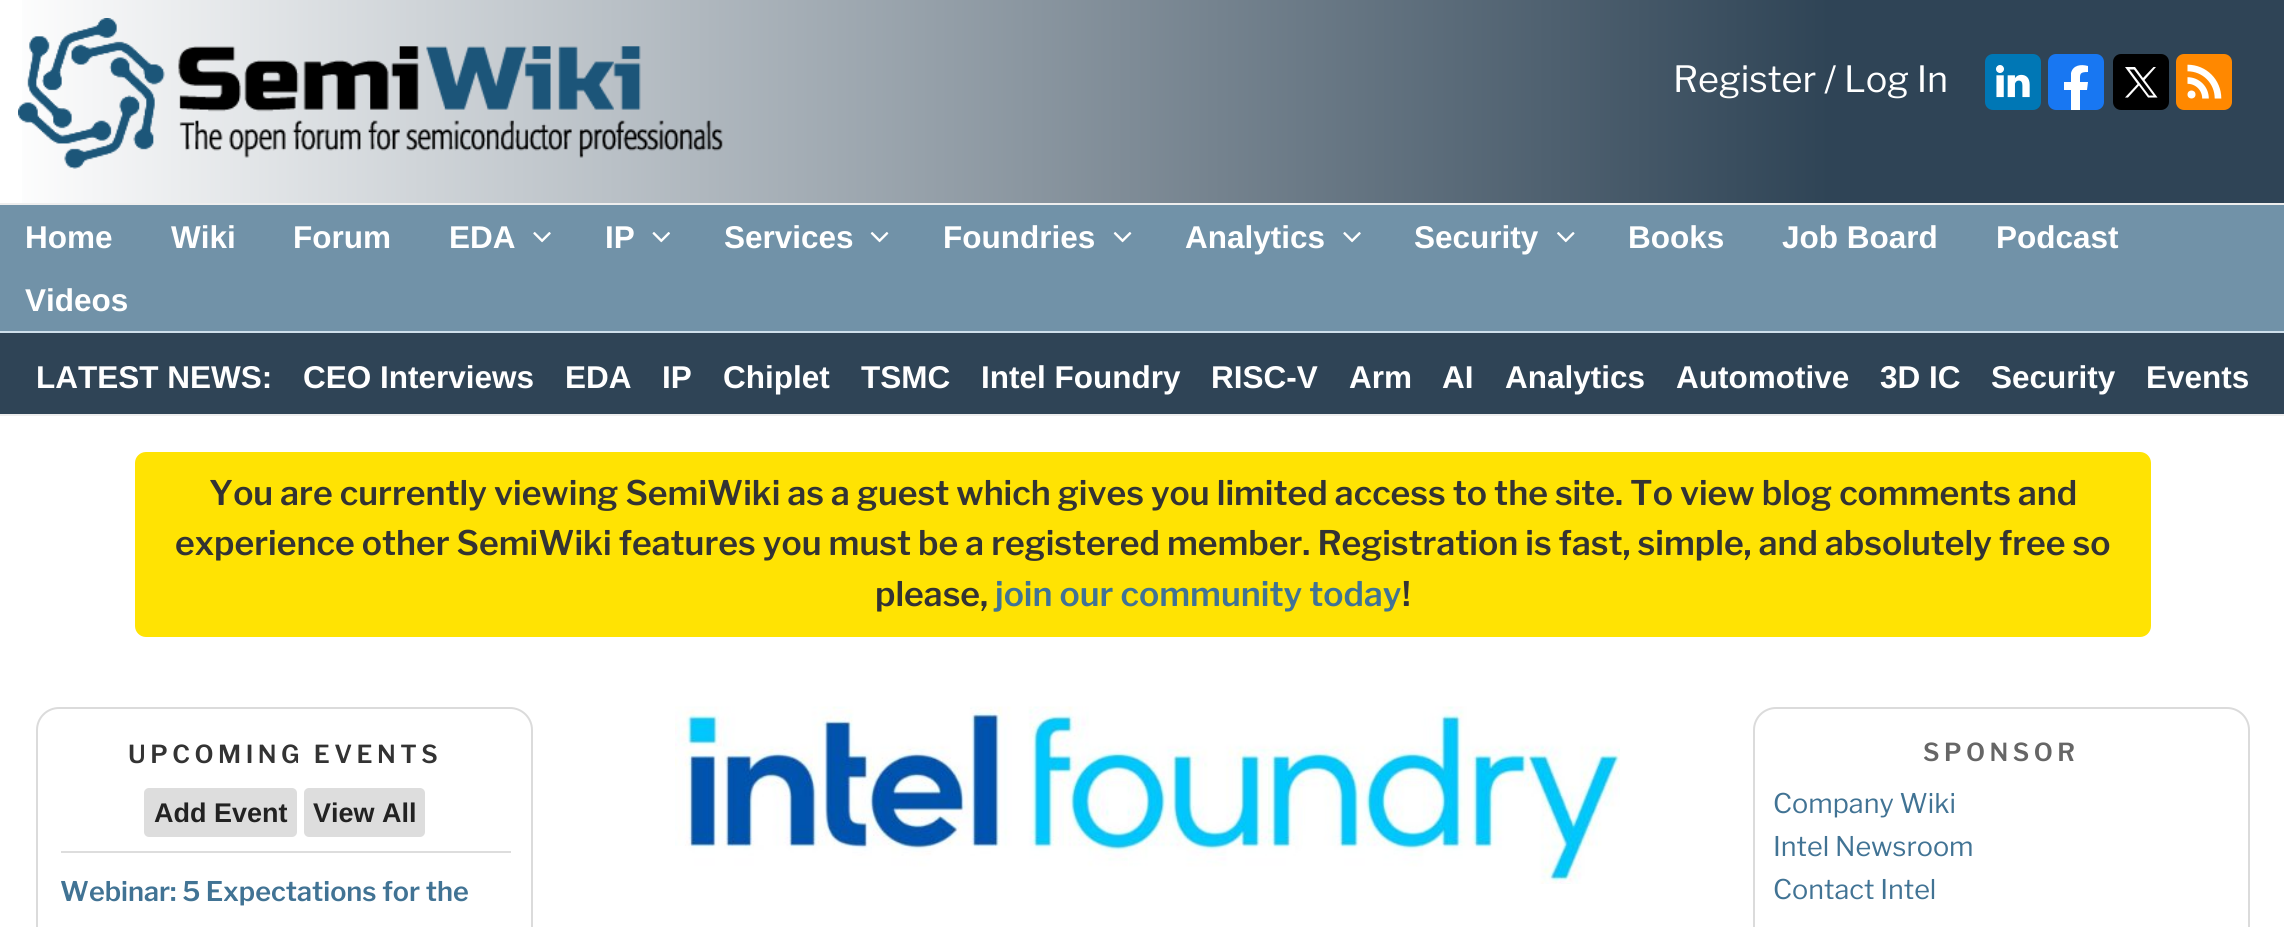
#include <cairo/cairo.h>
#include <math.h>
#include <stddef.h>

static cairo_t *cr;

static void use_color(int r, int g, int b) {
  cairo_set_source_rgb(cr, r / 255.0, g / 255.0, b / 255.0);
}

static void text(double x, double y, const char *s, const char *family, double size, int italic, int bold, int r, int g, int b) {
  cairo_select_font_face(cr, family, italic ? CAIRO_FONT_SLANT_ITALIC : CAIRO_FONT_SLANT_NORMAL,
    bold ? CAIRO_FONT_WEIGHT_BOLD : CAIRO_FONT_WEIGHT_NORMAL);
  cairo_set_font_size(cr, size);
  use_color(r, g, b);
  cairo_move_to(cr, x, y);
  cairo_show_text(cr, s);
}

static void spaced_text(double x, double y, const char *s, double letter, double word) {
  cairo_move_to(cr, x, y);
  while (*s) {
    char ch[5] = {0};
    int n = 0;
    do ch[n++] = *s++; while ((*s & 0xC0) == 0x80);
    cairo_show_text(cr, ch);
    cairo_rel_move_to(cr, letter + word * (*ch == ' '), 0);
  }
}

static void box(double x, double y, double w, double h, int r, int g, int b) {
  use_color(r, g, b);
  cairo_rectangle(cr, x, y, w, h);
  cairo_fill(cr);
}

static void round_rect(double x, double y, double w, double h, double r) {
  cairo_new_sub_path(cr);
  cairo_arc(cr, x + w - r, y + h - r, r, 0, M_PI / 2);
  cairo_arc(cr, x + r, y + h - r, r, M_PI / 2, M_PI);
  cairo_arc(cr, x + r, y + r, r, M_PI, 1.5 * M_PI);
  cairo_arc(cr, x + w - r, y + r, r, 1.5 * M_PI, 2 * M_PI);
  cairo_close_path(cr);
}

static void picture(const char *path, double x, double y, double w, double h) {
  cairo_surface_t *image = cairo_image_surface_create_from_png(path);
  cairo_save(cr);
  cairo_set_source_surface(cr, image, x, y);
  cairo_rectangle(cr, x, y, w, h);
  cairo_fill(cr);
  cairo_restore(cr);
  cairo_surface_destroy(image);
}

static void draw(void) {
  cairo_pattern_t *gradient;
  use_color(255, 255, 255);
  cairo_paint(cr);
  gradient = cairo_pattern_create_linear(0, 101, 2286, 101);
  cairo_pattern_add_color_stop_rgba(gradient, 0, 1, 1, 1, 1);
  cairo_pattern_add_color_stop_rgba(gradient, 0.8, 0.184, 0.267, 0.337, 1);
  cairo_set_source(cr, gradient);
  cairo_pattern_destroy(gradient);
  cairo_rectangle(cr, 22, 0, 2262, 203);
  cairo_fill(cr);
  picture("img_01.png", 18, 18, 705, 151);
  picture("img_02.png", 1985, 54, 56, 56);
  use_color(24, 119, 242);
  round_rect(2048, 54, 56, 56, 8);
  cairo_fill(cr);
  use_color(0, 0, 0);
  round_rect(2113, 54, 56, 56, 8);
  cairo_fill(cr);
  use_color(255, 136, 0);
  round_rect(2176, 54, 56, 56, 8);
  cairo_fill(cr);
  use_color(255, 255, 255);
  cairo_new_path(cr);
  cairo_move_to(cr, 2087, 90);
  cairo_line_to(cr, 2088, 82);
  cairo_line_to(cr, 2080, 82);
  cairo_curve_to(cr, 2080, 74, 2079, 72, 2088, 72);
  cairo_line_to(cr, 2088, 66);
  cairo_curve_to(cr, 2081, 64, 2073, 65, 2071, 73);
  cairo_line_to(cr, 2071, 82);
  cairo_line_to(cr, 2064, 82);
  cairo_line_to(cr, 2064, 90);
  cairo_line_to(cr, 2071, 90);
  cairo_line_to(cr, 2071, 110);
  cairo_line_to(cr, 2080, 110);
  cairo_line_to(cr, 2080, 90);
  cairo_close_path(cr);
  cairo_fill(cr);
  cairo_new_path(cr);
  cairo_move_to(cr, 2125, 67);
  cairo_line_to(cr, 2137.5, 84);
  cairo_line_to(cr, 2125, 97.5);
  cairo_line_to(cr, 2128, 97.5);
  cairo_line_to(cr, 2139, 85.5);
  cairo_line_to(cr, 2148, 97.5);
  cairo_line_to(cr, 2157.5, 97.5);
  cairo_line_to(cr, 2144.5, 80);
  cairo_line_to(cr, 2156, 67);
  cairo_line_to(cr, 2153.5, 67);
  cairo_line_to(cr, 2143, 78);
  cairo_line_to(cr, 2135, 67);
  cairo_close_path(cr);
  cairo_move_to(cr, 2129.5, 69.5);
  cairo_line_to(cr, 2134, 69.5);
  cairo_line_to(cr, 2153.5, 95.5);
  cairo_line_to(cr, 2149, 95.5);
  cairo_close_path(cr);
  cairo_fill(cr);
  cairo_arc(cr, 2191.5, 94.5, 4, 0, 2 * M_PI);
  cairo_fill(cr);
  cairo_new_path(cr);
  cairo_move_to(cr, 2187.5, 80.5);
  cairo_curve_to(cr, 2197.5, 80.5, 2205.5, 88.5, 2205.5, 98.5);
  cairo_move_to(cr, 2218, 98.5);
  cairo_curve_to(cr, 2218, 81.5, 2204.5, 68, 2187.5, 68);
  cairo_set_line_width(cr, 6.6);
  cairo_stroke(cr);
  box(0, 205, 2284, 126, 113, 146, 168);
  box(0, 203, 2284, 2, 238, 238, 238);
  box(0, 414, 2284, 2, 238, 238, 238);
  picture("img_03.png", 533, 232, 18, 11);
  picture("img_04.png", 652, 232, 18, 11);
  picture("img_05.png", 870, 232, 19, 11);
  picture("img_05.png", 1113, 232, 19, 11);
  picture("img_03.png", 1343, 232, 18, 11);
  picture("img_06.png", 1557, 232, 18, 11);
  box(0, 333, 2284, 81, 47, 68, 86);
  box(0, 331, 2284, 2, 206, 223, 235);
  use_color(255, 227, 3);
  round_rect(135, 452, 2016, 185, 11);
  cairo_fill(cr);
  round_rect(37, 708, 495, 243, 22);
  use_color(219, 219, 219);
  cairo_set_line_width(cr, 2);
  cairo_stroke(cr);
  use_color(221, 221, 221);
  round_rect(144, 788, 153, 49, 5);
  cairo_fill(cr);
  round_rect(304, 788, 121, 49, 5);
  cairo_fill(cr);
  box(61, 851, 450, 2, 221, 221, 221);
  picture("img_07.png", 675, 706, 945, 178);
  round_rect(1754, 708, 495, 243, 22);
  use_color(219, 219, 219);
  cairo_stroke(cr);
  text(1673, 92, "Register / Log In", "Libre Franklin", 36, 0, 0, 255, 255, 255);
  text(25, 248, "Home", "Liberation Sans", 31.5, 0, 1, 255, 255, 255);
  text(171, 248, "Wiki", "Liberation Sans", 31.5, 0, 1, 255, 255, 255);
  text(293, 248, "Forum", "Liberation Sans", 31.5, 0, 1, 255, 255, 255);
  text(449, 248, "EDA", "Liberation Sans", 31.5, 0, 1, 255, 255, 255);
  text(605, 248, "IP", "Liberation Sans", 31.5, 0, 1, 255, 255, 255);
  text(724, 248, "Services", "Liberation Sans", 31.5, 0, 1, 255, 255, 255);
  text(943, 248, "Foundries", "Liberation Sans", 31.5, 0, 1, 255, 255, 255);
  text(1185, 248, "Analytics", "Liberation Sans", 31.5, 0, 1, 255, 255, 255);
  text(1414, 248, "Security", "Liberation Sans", 31.5, 0, 1, 255, 255, 255);
  text(1628, 248, "Books", "Liberation Sans", 31.5, 0, 1, 255, 255, 255);
  text(1782, 248, "Job Board", "Liberation Sans", 31.5, 0, 1, 255, 255, 255);
  text(1996, 248, "Podcast", "Liberation Sans", 31.5, 0, 1, 255, 255, 255);
  text(25, 311, "Videos", "Liberation Sans", 31.5, 0, 1, 255, 255, 255);
  text(36, 388, "LATEST NEWS:", "Liberation Sans", 31.5, 0, 1, 255, 255, 255);
  text(303, 388, "CEO Interviews", "Liberation Sans", 31.5, 0, 1, 255, 255, 255);
  text(565, 388, "EDA", "Liberation Sans", 31.5, 0, 1, 255, 255, 255);
  text(662, 388, "IP", "Liberation Sans", 31.5, 0, 1, 255, 255, 255);
  text(723, 388, "Chiplet", "Liberation Sans", 31.5, 0, 1, 255, 255, 255);
  text(861, 388, "TSMC", "Liberation Sans", 31.5, 0, 1, 255, 255, 255);
  text(981, 388, "Intel Foundry", "Liberation Sans", 31.5, 0, 1, 255, 255, 255);
  text(1211, 388, "RISC-V", "Liberation Sans", 31.5, 0, 1, 255, 255, 255);
  text(1349, 388, "Arm", "Liberation Sans", 31.5, 0, 1, 255, 255, 255);
  text(1442, 388, "AI", "Liberation Sans", 31.5, 0, 1, 255, 255, 255);
  text(1505, 388, "Analytics", "Liberation Sans", 31.5, 0, 1, 255, 255, 255);
  text(1676, 388, "Automotive", "Liberation Sans", 31.5, 0, 1, 255, 255, 255);
  text(1880, 388, "3D IC", "Liberation Sans", 31.5, 0, 1, 255, 255, 255);
  text(1991, 388, "Security", "Liberation Sans", 31.5, 0, 1, 255, 255, 255);
  text(2146, 388, "Events", "Liberation Sans", 31.5, 0, 1, 255, 255, 255);
  text(209, 505, "You are currently viewing SemiWiki as a guest which gives you limited access to the site. To view blog comments and", "Libre Franklin SemiBold", 33.75, 0, 0, 51, 51, 51);
  text(175, 555, "experience other SemiWiki features you must be a registered member. Registration is fast, simple, and absolutely free so", "Libre Franklin SemiBold", 33.75, 0, 0, 51, 51, 51);
  text(875, 606, "please,", "Libre Franklin SemiBold", 33.75, 0, 0, 51, 51, 51);
  text(995, 606, "join our community today", "Libre Franklin SemiBold", 33.75, 0, 0, 65, 115, 148);
  text(1402, 606, "!", "Libre Franklin SemiBold", 33.75, 0, 0, 51, 51, 51);
  cairo_set_font_size(cr, 24.75);
  spaced_text(128, 763, "UPCOMING EVENTS", 4.5, 0);
  text(154, 822, "Add Event", "Liberation Sans", 27, 0, 1, 34, 34, 34);
  text(313, 822, "View All", "Liberation Sans", 27, 0, 1, 34, 34, 34);
  text(60, 901, "Webinar: 5 Expectations for the", "Libre Franklin SemiBold", 27, 0, 0, 65, 115, 148);
  cairo_set_font_size(cr, 24.75);
  use_color(102, 102, 102);
  spaced_text(1923, 761, "SPONSOR", 4.5, 0);
  text(1773, 813, "Company Wiki", "Libre Franklin", 27, 0, 0, 65, 115, 148);
  text(1773, 856, "Intel Newsroom", "Libre Franklin", 27, 0, 0, 65, 115, 148);
  text(1773, 899, "Contact Intel", "Libre Franklin", 27, 0, 0, 65, 115, 148);
}

int main(void) {
  cairo_surface_t *surface = cairo_image_surface_create(CAIRO_FORMAT_RGB24, 2284, 927);
  cr = cairo_create(surface);
  cairo_font_options_t *options = cairo_font_options_create();
  cairo_font_options_set_hint_metrics(options, CAIRO_HINT_METRICS_OFF);
  cairo_font_options_set_hint_style(options, CAIRO_HINT_STYLE_NONE);
  cairo_set_font_options(cr, options);
  cairo_set_miter_limit(cr, 4);
  draw();
  cairo_surface_write_to_png(surface, "out.png");
  cairo_font_options_destroy(options);
  cairo_destroy(cr);
  cairo_surface_destroy(surface);
  return 0;
}
